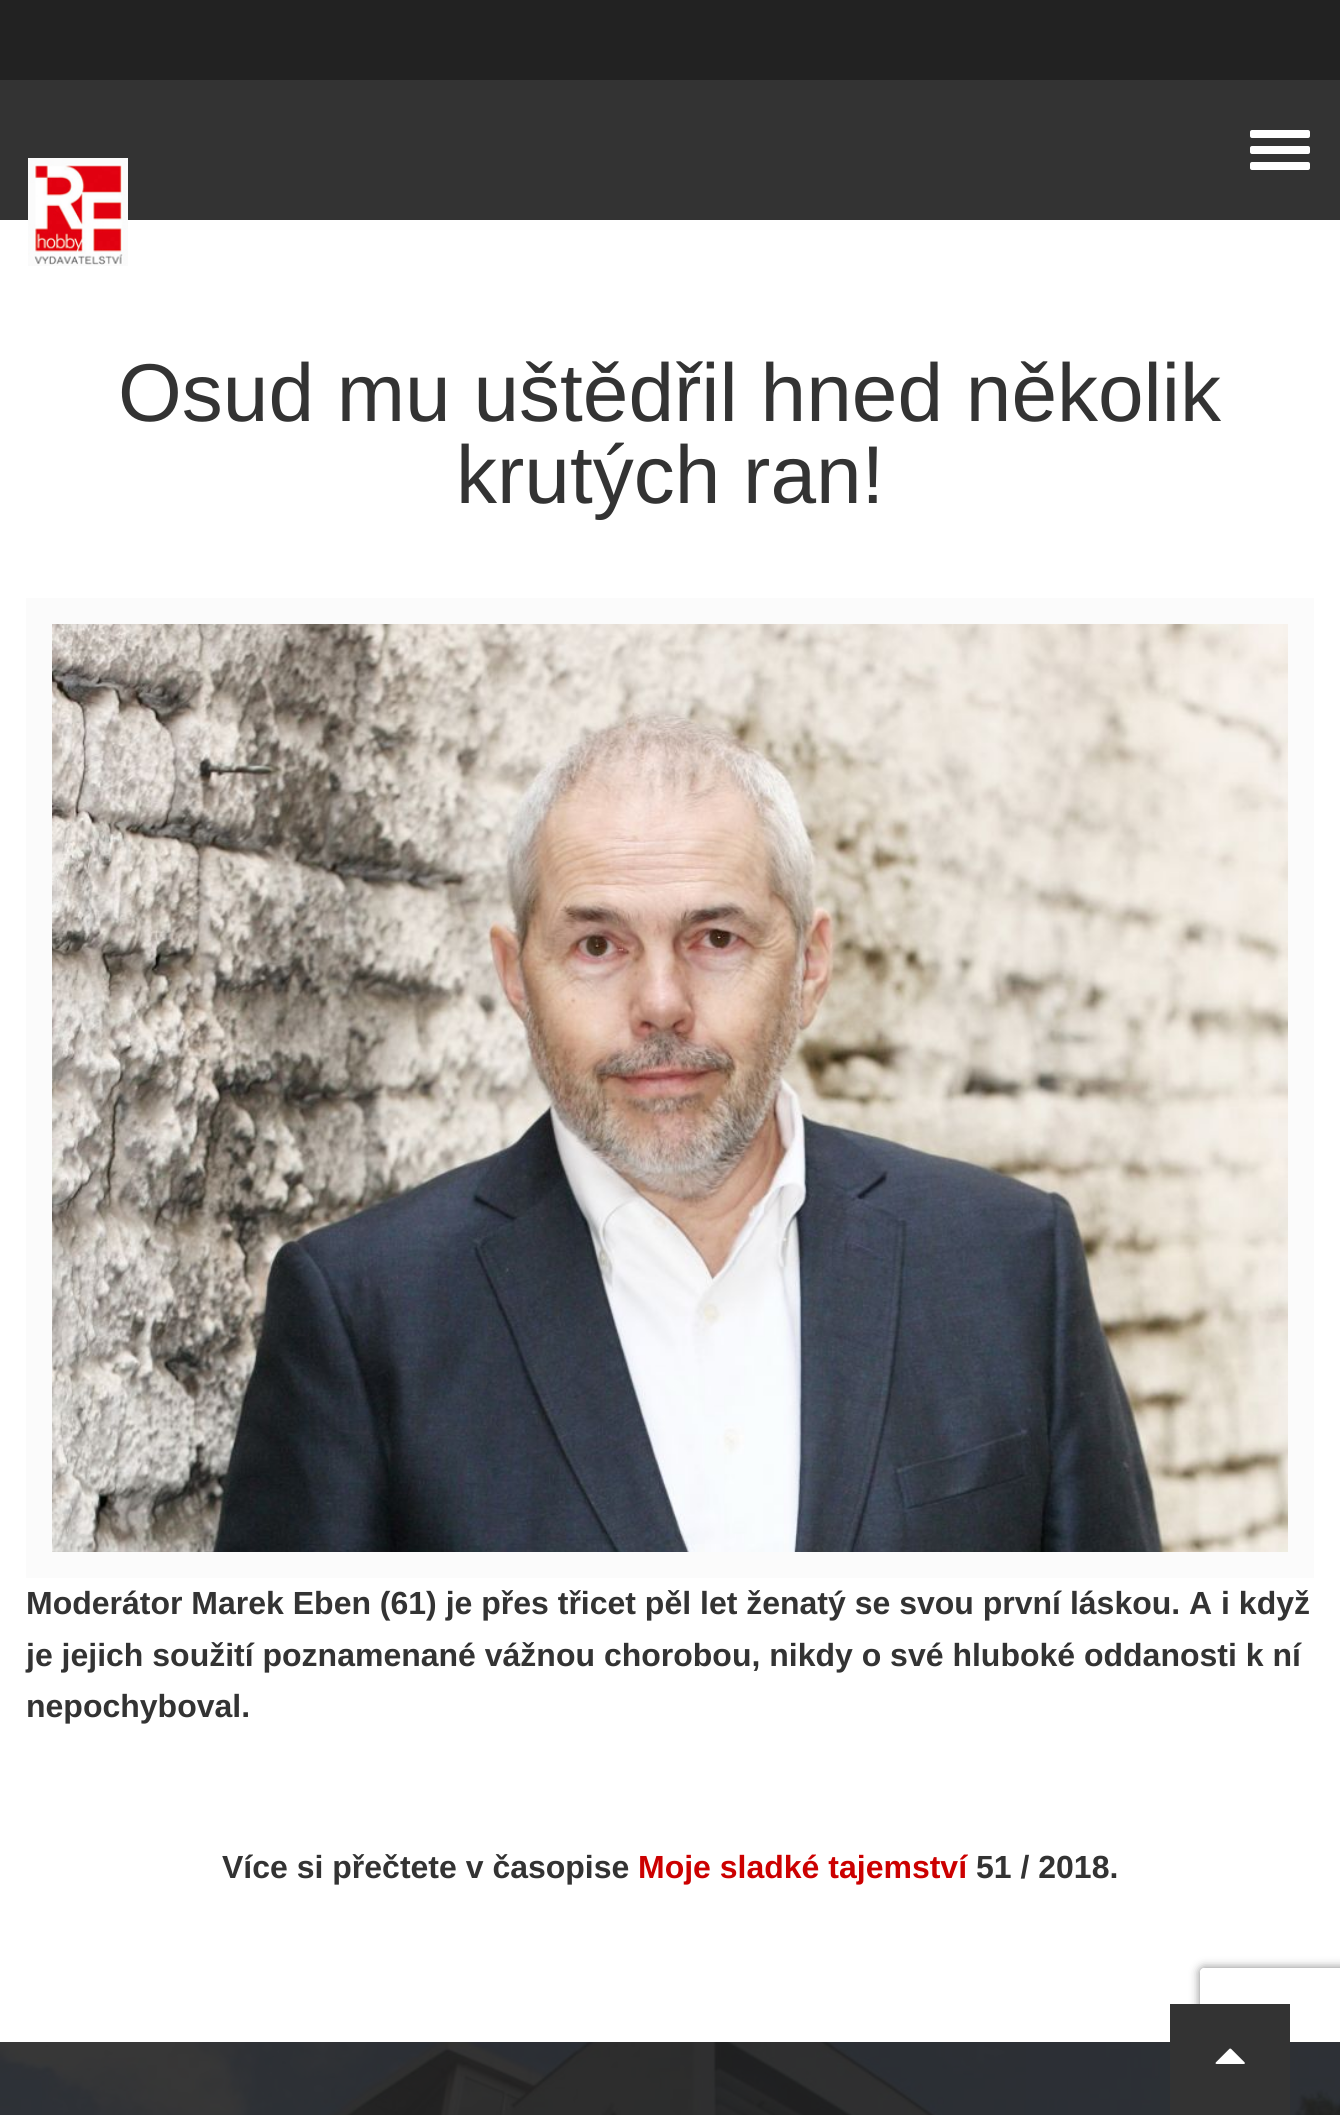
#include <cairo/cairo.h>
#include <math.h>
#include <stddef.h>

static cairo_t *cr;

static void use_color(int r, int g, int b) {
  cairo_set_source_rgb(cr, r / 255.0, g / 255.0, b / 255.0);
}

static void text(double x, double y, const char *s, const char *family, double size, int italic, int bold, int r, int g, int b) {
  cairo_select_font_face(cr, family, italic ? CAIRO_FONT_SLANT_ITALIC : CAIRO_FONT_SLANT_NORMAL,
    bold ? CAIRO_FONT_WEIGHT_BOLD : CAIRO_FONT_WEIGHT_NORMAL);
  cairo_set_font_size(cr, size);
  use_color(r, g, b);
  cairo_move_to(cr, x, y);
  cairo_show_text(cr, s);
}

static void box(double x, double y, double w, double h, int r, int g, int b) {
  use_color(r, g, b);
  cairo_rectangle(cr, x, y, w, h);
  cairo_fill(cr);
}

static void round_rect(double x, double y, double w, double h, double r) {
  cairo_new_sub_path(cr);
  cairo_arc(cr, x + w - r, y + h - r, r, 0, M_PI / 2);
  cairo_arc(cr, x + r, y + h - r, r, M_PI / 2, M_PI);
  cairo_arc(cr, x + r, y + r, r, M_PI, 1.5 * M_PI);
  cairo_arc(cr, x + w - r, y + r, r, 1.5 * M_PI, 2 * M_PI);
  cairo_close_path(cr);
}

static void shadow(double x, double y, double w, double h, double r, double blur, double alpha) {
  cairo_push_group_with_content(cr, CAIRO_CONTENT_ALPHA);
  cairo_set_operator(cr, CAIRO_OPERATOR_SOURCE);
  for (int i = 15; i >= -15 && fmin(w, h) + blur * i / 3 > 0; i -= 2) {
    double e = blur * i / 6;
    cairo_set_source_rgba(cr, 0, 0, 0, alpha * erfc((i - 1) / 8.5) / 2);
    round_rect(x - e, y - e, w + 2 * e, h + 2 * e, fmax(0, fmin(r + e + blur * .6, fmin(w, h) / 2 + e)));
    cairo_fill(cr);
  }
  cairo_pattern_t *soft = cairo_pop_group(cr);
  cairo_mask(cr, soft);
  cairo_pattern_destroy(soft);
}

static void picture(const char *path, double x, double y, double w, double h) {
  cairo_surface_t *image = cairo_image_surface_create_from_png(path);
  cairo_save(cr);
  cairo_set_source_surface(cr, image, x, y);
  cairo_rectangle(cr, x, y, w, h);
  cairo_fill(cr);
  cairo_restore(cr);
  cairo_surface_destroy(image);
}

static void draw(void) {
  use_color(255, 255, 255);
  cairo_paint(cr);
  box(0, 0, 1340, 80, 34, 34, 34);
  box(0, 80, 1340, 140, 51, 51, 51);
  use_color(255, 255, 255);
  round_rect(1250, 130, 60, 8, 2);
  cairo_fill(cr);
  round_rect(1250, 146, 60, 8, 2);
  cairo_fill(cr);
  round_rect(1250, 162, 60, 8, 2);
  cairo_fill(cr);
  picture("img_01.png", 28, 158, 100, 108);
  cairo_rectangle(cr, 39, 611, 1262, 954);
  use_color(251, 251, 251);
  cairo_set_line_width(cr, 26);
  cairo_stroke(cr);
  picture("img_02.png", 52, 624, 1236, 928);
  cairo_save(cr);
  cairo_set_fill_rule(cr, CAIRO_FILL_RULE_EVEN_ODD);
  cairo_new_path(cr);
  cairo_move_to(cr, 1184, 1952);
  cairo_line_to(cr, 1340, 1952);
  cairo_line_to(cr, 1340, 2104);
  cairo_line_to(cr, 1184, 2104);
  cairo_close_path(cr);
  cairo_move_to(cr, 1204, 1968);
  cairo_line_to(cr, 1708, 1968);
  cairo_curve_to(cr, 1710, 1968, 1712, 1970, 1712, 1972);
  cairo_line_to(cr, 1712, 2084);
  cairo_curve_to(cr, 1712, 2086, 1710, 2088, 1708, 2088);
  cairo_line_to(cr, 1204, 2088);
  cairo_curve_to(cr, 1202, 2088, 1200, 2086, 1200, 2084);
  cairo_line_to(cr, 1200, 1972);
  cairo_curve_to(cr, 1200, 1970, 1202, 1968, 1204, 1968);
  cairo_close_path(cr);
  cairo_clip(cr);
  use_color(128, 128, 128);
  shadow(1200, 1968, 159, 120, 4, 5, 1);
  cairo_restore(cr);
  picture("img_04.png", 0, 2042, 1340, 73);
  box(1170, 2004, 120, 111, 51, 51, 51);
  picture("img_03.png", 1215, 2048, 30, 16);
  text(118, 421, "Osud mu uštědřil hned několik", "Liberation Sans", 82, 0, 0, 51, 51, 51);
  text(456, 503, "krutých ran!", "Liberation Sans", 82, 0, 0, 51, 51, 51);
  text(26, 1614, "Moderátor Marek Eben (61) je přes třicet pěl let ženatý se svou první láskou. A i když", "Liberation Sans", 32, 0, 1, 51, 51, 51);
  text(26, 1666, "je jejich soužití poznamenané vážnou chorobou, nikdy o své hluboké oddanosti k ní", "Liberation Sans", 32, 0, 1, 51, 51, 51);
  text(26, 1717, "nepochyboval.", "Liberation Sans", 32, 0, 1, 51, 51, 51);
  text(222, 1878, "Více si přečtete v časopise", "Liberation Sans", 32, 0, 1, 51, 51, 51);
  text(638, 1878, "Moje sladké tajemství", "Liberation Sans", 32, 0, 1, 204, 0, 0);
  text(976, 1878, "51 / 2018.", "Liberation Sans", 32, 0, 1, 51, 51, 51);
}

int main(void) {
  cairo_surface_t *surface = cairo_image_surface_create(CAIRO_FORMAT_RGB24, 1340, 2115);
  cr = cairo_create(surface);
  cairo_font_options_t *options = cairo_font_options_create();
  cairo_font_options_set_hint_metrics(options, CAIRO_HINT_METRICS_OFF);
  cairo_font_options_set_hint_style(options, CAIRO_HINT_STYLE_NONE);
  cairo_set_font_options(cr, options);
  cairo_set_miter_limit(cr, 4);
  draw();
  cairo_surface_write_to_png(surface, "out.png");
  cairo_font_options_destroy(options);
  cairo_destroy(cr);
  cairo_surface_destroy(surface);
  return 0;
}
